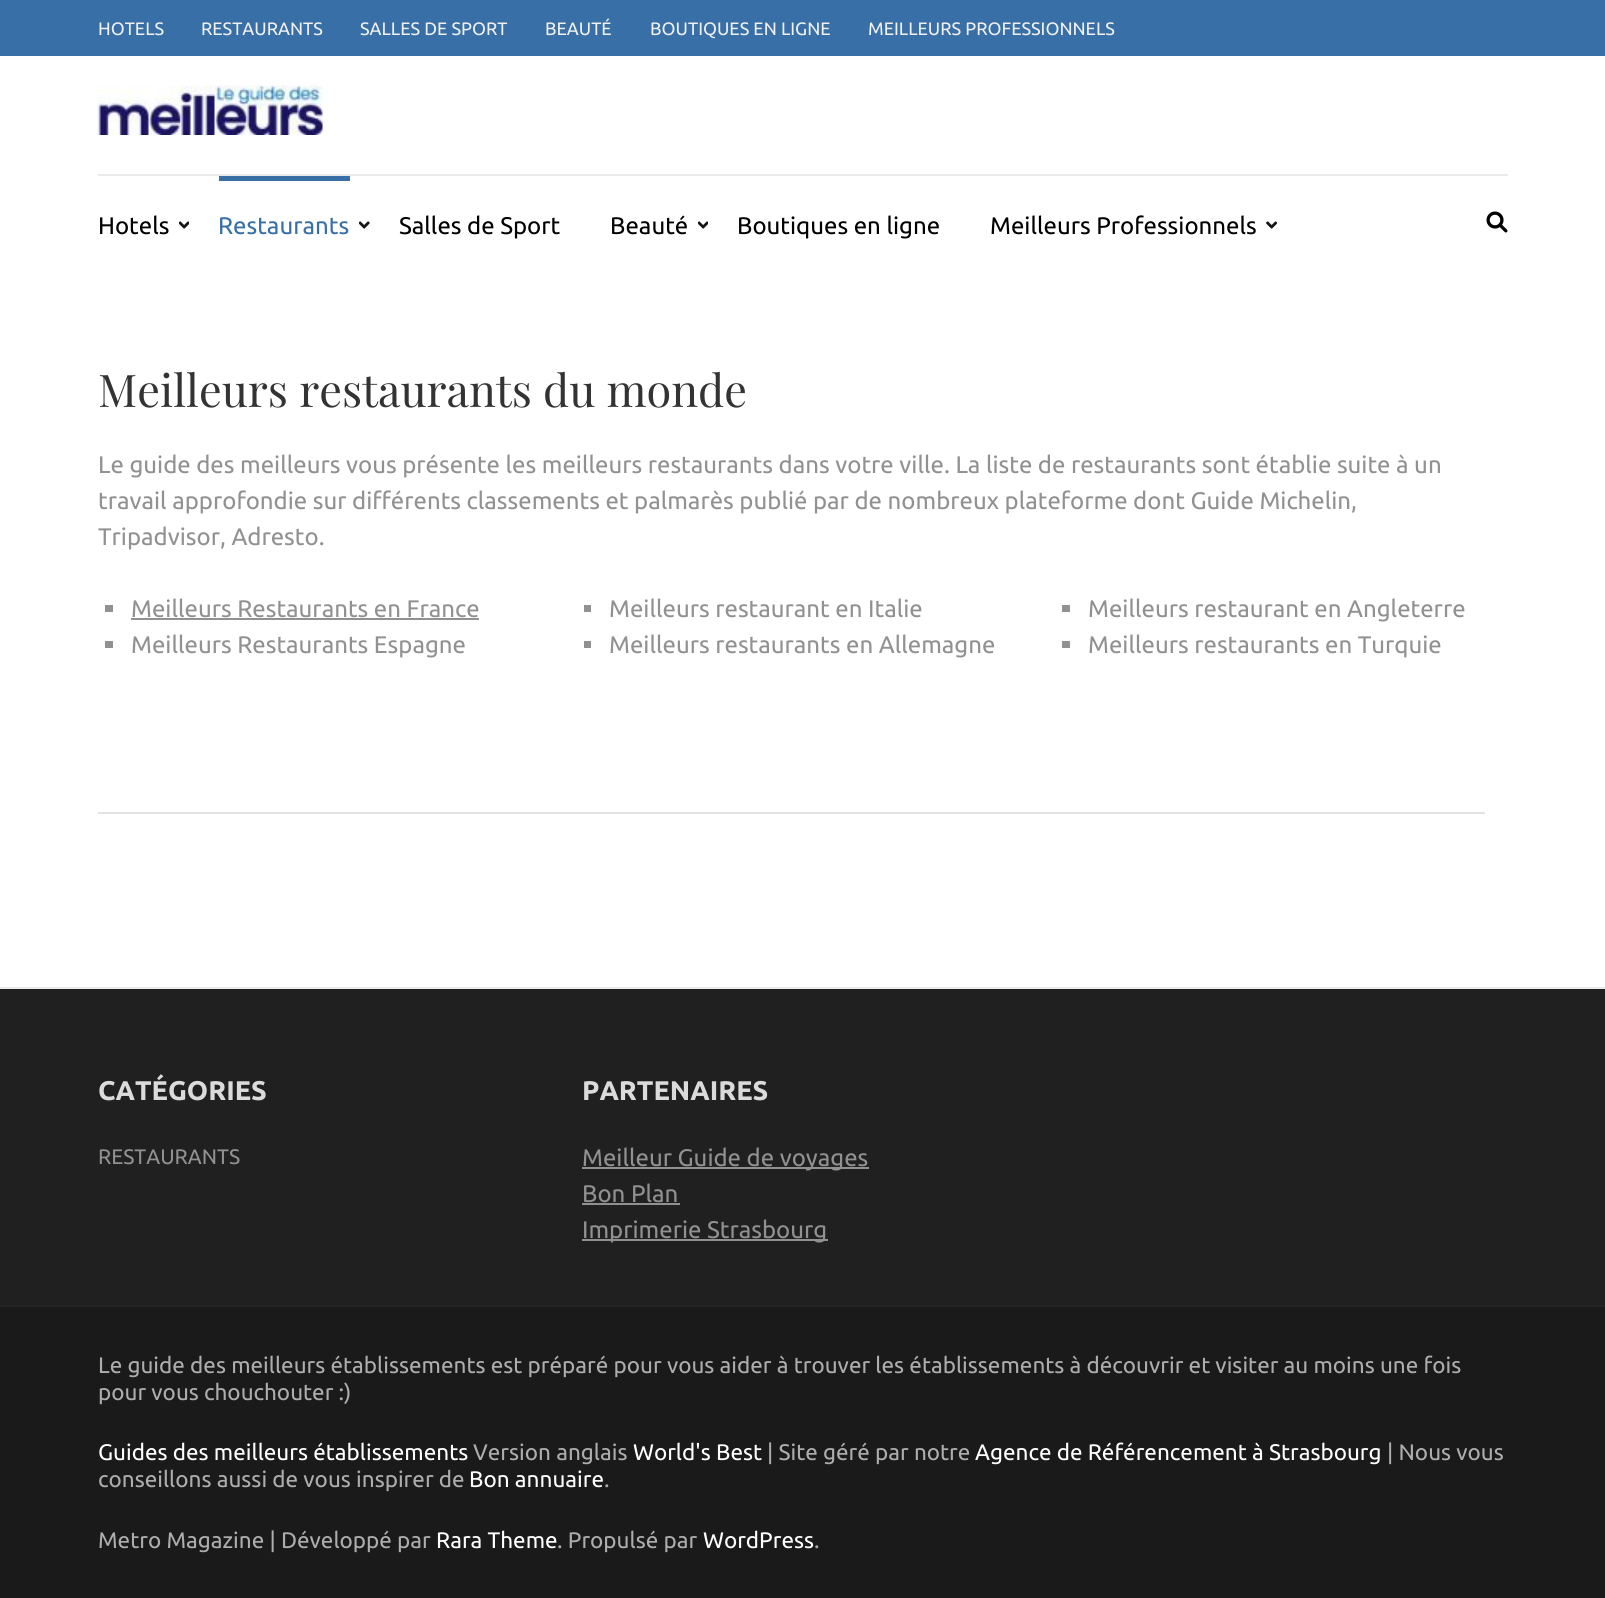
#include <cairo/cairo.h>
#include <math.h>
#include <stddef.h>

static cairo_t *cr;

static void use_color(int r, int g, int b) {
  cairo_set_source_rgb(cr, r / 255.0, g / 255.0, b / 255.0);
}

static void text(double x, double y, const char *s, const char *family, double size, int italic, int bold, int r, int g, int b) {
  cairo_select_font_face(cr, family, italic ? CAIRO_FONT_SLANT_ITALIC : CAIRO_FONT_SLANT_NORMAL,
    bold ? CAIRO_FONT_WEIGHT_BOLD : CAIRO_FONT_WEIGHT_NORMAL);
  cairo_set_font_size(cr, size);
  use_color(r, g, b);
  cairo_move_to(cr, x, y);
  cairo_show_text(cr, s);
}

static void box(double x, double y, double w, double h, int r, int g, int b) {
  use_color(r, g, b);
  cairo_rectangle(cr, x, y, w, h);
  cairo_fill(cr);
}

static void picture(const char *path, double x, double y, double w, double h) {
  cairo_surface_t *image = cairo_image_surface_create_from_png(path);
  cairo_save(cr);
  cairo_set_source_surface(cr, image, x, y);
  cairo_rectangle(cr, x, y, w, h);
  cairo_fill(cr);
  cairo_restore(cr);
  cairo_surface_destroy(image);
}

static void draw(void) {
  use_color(255, 255, 255);
  cairo_paint(cr);
  box(0, 0, 1605, 56, 56, 111, 167);
  picture("img_01.png", 97, 85, 226, 50);
  box(98, 174, 1410, 2, 235, 235, 235);
  picture("img_02.png", 179, 221, 10, 8);
  box(219, 176, 131, 5, 56, 111, 167);
  picture("img_03.png", 359, 221, 11, 8);
  picture("img_02.png", 698, 221, 10, 8);
  picture("img_04.png", 1266, 221, 11, 8);
  picture("img_05.png", 1486, 211, 22, 22);
  box(0, 987, 1605, 2, 235, 235, 235);
  box(105, 605, 8, 7, 145, 145, 145);
  box(131, 618, 348, 2, 145, 145, 145);
  box(105, 641, 8, 7, 145, 145, 145);
  box(584, 605, 7, 7, 145, 145, 145);
  box(584, 641, 7, 7, 145, 145, 145);
  box(1062, 605, 8, 7, 145, 145, 145);
  box(1062, 641, 8, 7, 145, 145, 145);
  box(98, 812, 1387, 2, 227, 227, 227);
  box(0, 989, 1605, 316, 32, 32, 32);
  box(582, 1167, 287, 2, 145, 145, 145);
  box(582, 1203, 98, 2, 145, 145, 145);
  box(582, 1239, 246, 2, 145, 145, 145);
  box(0, 1307, 1605, 291, 26, 26, 26);
  box(0, 1305, 1605, 2, 37, 37, 37);
  text(98, 35, "HOTELS", "Ubuntu", 18, 0, 0, 241, 241, 241);
  text(201, 35, "RESTAURANTS", "Ubuntu", 18, 0, 0, 241, 241, 241);
  text(360, 35, "SALLES DE SPORT", "Ubuntu", 18, 0, 0, 241, 241, 241);
  text(545, 35, "BEAUTÉ", "Ubuntu", 18, 0, 0, 241, 241, 241);
  text(650, 35, "BOUTIQUES EN LIGNE", "Ubuntu", 18, 0, 0, 241, 241, 241);
  text(868, 35, "MEILLEURS PROFESSIONNELS", "Ubuntu", 18, 0, 0, 241, 241, 241);
  text(98, 234, "Hotels", "Ubuntu", 24, 0, 0, 0, 0, 0);
  text(218, 234, "Restaurants", "Ubuntu", 24, 0, 0, 56, 111, 167);
  text(399, 234, "Salles de Sport", "Ubuntu", 24, 0, 0, 0, 0, 0);
  text(610, 234, "Beauté", "Ubuntu", 24, 0, 0, 0, 0, 0);
  text(737, 234, "Boutiques en ligne", "Ubuntu", 24, 0, 0, 0, 0, 0);
  text(990, 234, "Meilleurs Professionnels", "Ubuntu", 24, 0, 0, 0, 0, 0);
  text(98, 407, "Meilleurs restaurants du monde", "Playfair Display", 45, 0, 0, 51, 51, 51);
  text(98, 473, "Le guide des meilleurs vous présente les meilleurs restaurants dans votre ville. La liste de restaurants sont établie suite à un", "Ubuntu", 24, 0, 0, 145, 145, 145);
  text(98, 509, "travail approfondie sur différents classements et palmarès publié par de nombreux plateforme dont Guide Michelin,", "Ubuntu", 24, 0, 0, 145, 145, 145);
  text(98, 545, "Tripadvisor, Adresto.", "Ubuntu", 24, 0, 0, 145, 145, 145);
  text(131, 617, "Meilleurs Restaurants en France", "Ubuntu", 24, 0, 0, 145, 145, 145);
  text(131, 653, "Meilleurs Restaurants Espagne", "Ubuntu", 24, 0, 0, 145, 145, 145);
  text(609, 617, "Meilleurs restaurant en Italie", "Ubuntu", 24, 0, 0, 145, 145, 145);
  text(609, 653, "Meilleurs restaurants en Allemagne", "Ubuntu", 24, 0, 0, 145, 145, 145);
  text(1088, 617, "Meilleurs restaurant en Angleterre", "Ubuntu", 24, 0, 0, 145, 145, 145);
  text(1088, 653, "Meilleurs restaurants en Turquie", "Ubuntu", 24, 0, 0, 145, 145, 145);
  text(98, 1100, "CATÉGORIES", "Ubuntu", 27, 0, 1, 219, 219, 219);
  text(98, 1164, "RESTAURANTS", "Ubuntu", 21, 0, 0, 145, 145, 145);
  text(582, 1100, "PARTENAIRES", "Ubuntu", 27, 0, 1, 219, 219, 219);
  text(582, 1166, "Meilleur Guide de voyages", "Ubuntu", 24, 0, 0, 145, 145, 145);
  text(582, 1202, "Bon Plan", "Ubuntu", 24, 0, 0, 145, 145, 145);
  text(582, 1238, "Imprimerie Strasbourg", "Ubuntu", 24, 0, 0, 145, 145, 145);
  text(98, 1373, "Le guide des meilleurs établissements est préparé pour vous aider à trouver les établissements à découvrir et visiter au moins une fois", "Ubuntu", 22.5, 0, 0, 173, 173, 173);
  text(98, 1400, "pour vous chouchouter :)", "Ubuntu", 22.5, 0, 0, 173, 173, 173);
  text(98, 1460, "Guides des meilleurs établissements", "Ubuntu", 22.5, 0, 0, 255, 255, 255);
  text(473, 1460, "Version anglais", "Ubuntu", 22.5, 0, 0, 173, 173, 173);
  text(633, 1460, "World's Best", "Ubuntu", 22.5, 0, 0, 255, 255, 255);
  text(767, 1460, "| Site géré par notre", "Ubuntu", 22.5, 0, 0, 173, 173, 173);
  text(975, 1460, "Agence de Référencement à Strasbourg", "Ubuntu", 22.5, 0, 0, 255, 255, 255);
  text(1387, 1460, "| Nous vous", "Ubuntu", 22.5, 0, 0, 173, 173, 173);
  text(98, 1487, "conseillons aussi de vous inspirer de", "Ubuntu", 22.5, 0, 0, 173, 173, 173);
  text(469, 1487, "Bon annuaire", "Ubuntu", 22.5, 0, 0, 255, 255, 255);
  text(604, 1487, ".", "Ubuntu", 22.5, 0, 0, 173, 173, 173);
  text(98, 1548, "Metro Magazine | Développé par", "Ubuntu", 22.5, 0, 0, 173, 173, 173);
  text(436, 1548, "Rara Theme", "Ubuntu", 22.5, 0, 0, 255, 255, 255);
  text(557, 1548, ". Propulsé par", "Ubuntu", 22.5, 0, 0, 173, 173, 173);
  text(703, 1548, "WordPress", "Ubuntu", 22.5, 0, 0, 255, 255, 255);
  text(814, 1548, ".", "Ubuntu", 22.5, 0, 0, 173, 173, 173);
}

int main(void) {
  cairo_surface_t *surface = cairo_image_surface_create(CAIRO_FORMAT_RGB24, 1605, 1598);
  cr = cairo_create(surface);
  cairo_font_options_t *options = cairo_font_options_create();
  cairo_font_options_set_hint_metrics(options, CAIRO_HINT_METRICS_OFF);
  cairo_font_options_set_hint_style(options, CAIRO_HINT_STYLE_NONE);
  cairo_set_font_options(cr, options);
  cairo_set_miter_limit(cr, 4);
  draw();
  cairo_surface_write_to_png(surface, "out.png");
  cairo_font_options_destroy(options);
  cairo_destroy(cr);
  cairo_surface_destroy(surface);
  return 0;
}
